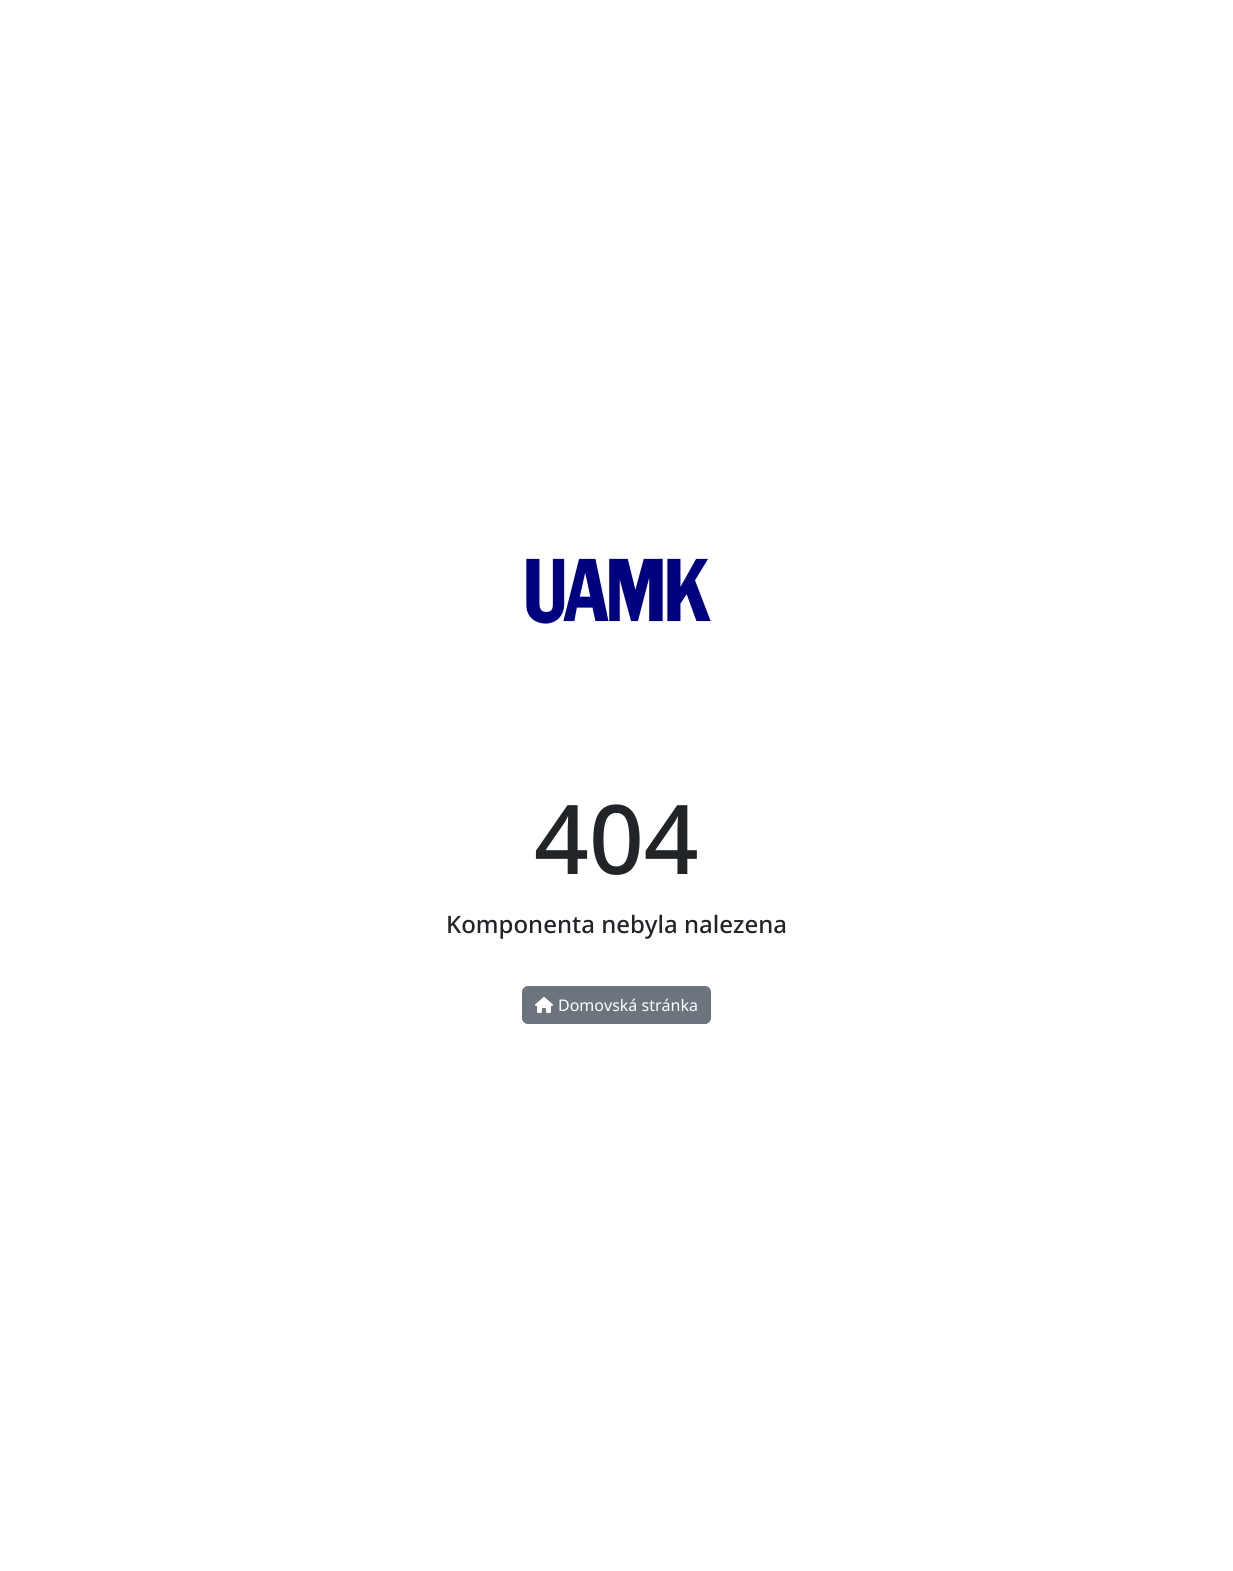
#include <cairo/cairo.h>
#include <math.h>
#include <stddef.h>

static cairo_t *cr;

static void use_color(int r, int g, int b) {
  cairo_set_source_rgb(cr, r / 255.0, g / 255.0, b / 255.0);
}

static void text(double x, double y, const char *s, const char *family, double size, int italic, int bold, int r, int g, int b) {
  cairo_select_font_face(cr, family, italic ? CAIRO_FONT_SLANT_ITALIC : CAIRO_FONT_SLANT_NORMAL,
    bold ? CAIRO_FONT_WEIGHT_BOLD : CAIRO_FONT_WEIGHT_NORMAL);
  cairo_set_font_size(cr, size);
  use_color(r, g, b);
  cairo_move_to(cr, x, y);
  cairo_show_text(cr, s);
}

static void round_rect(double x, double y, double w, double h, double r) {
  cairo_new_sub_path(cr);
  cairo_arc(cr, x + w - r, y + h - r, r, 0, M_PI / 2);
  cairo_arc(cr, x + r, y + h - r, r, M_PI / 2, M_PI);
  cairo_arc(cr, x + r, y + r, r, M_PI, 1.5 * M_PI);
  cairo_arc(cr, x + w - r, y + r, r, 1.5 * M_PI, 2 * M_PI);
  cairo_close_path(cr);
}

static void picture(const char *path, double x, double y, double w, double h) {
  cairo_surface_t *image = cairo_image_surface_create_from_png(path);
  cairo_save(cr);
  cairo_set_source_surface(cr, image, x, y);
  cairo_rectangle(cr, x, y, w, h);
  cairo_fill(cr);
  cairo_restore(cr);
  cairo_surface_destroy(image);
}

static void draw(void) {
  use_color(255, 255, 255);
  cairo_paint(cr);
  picture("img_01.png", 526, 558, 185, 66);
  use_color(108, 117, 125);
  round_rect(522.5, 986.5, 188, 37, 5.5);
  cairo_fill_preserve(cr);
  cairo_set_line_width(cr, 1);
  cairo_stroke(cr);
  picture("img_02.png", 535, 997, 18, 16);
  text(534, 874, "404", "Noto Sans Medium", 96, 0, 0, 33, 37, 41);
  text(446, 933, "Komponenta nebyla nalezena", "Noto Sans Medium", 24, 0, 0, 33, 37, 41);
  text(558, 1011, "Domovská stránka", "Noto Sans", 16, 0, 0, 255, 255, 255);
}

int main(void) {
  cairo_surface_t *surface = cairo_image_surface_create(CAIRO_FORMAT_RGB24, 1233, 1571);
  cr = cairo_create(surface);
  cairo_font_options_t *options = cairo_font_options_create();
  cairo_font_options_set_hint_metrics(options, CAIRO_HINT_METRICS_OFF);
  cairo_font_options_set_hint_style(options, CAIRO_HINT_STYLE_NONE);
  cairo_set_font_options(cr, options);
  cairo_set_miter_limit(cr, 4);
  draw();
  cairo_surface_write_to_png(surface, "out.png");
  cairo_font_options_destroy(options);
  cairo_destroy(cr);
  cairo_surface_destroy(surface);
  return 0;
}
